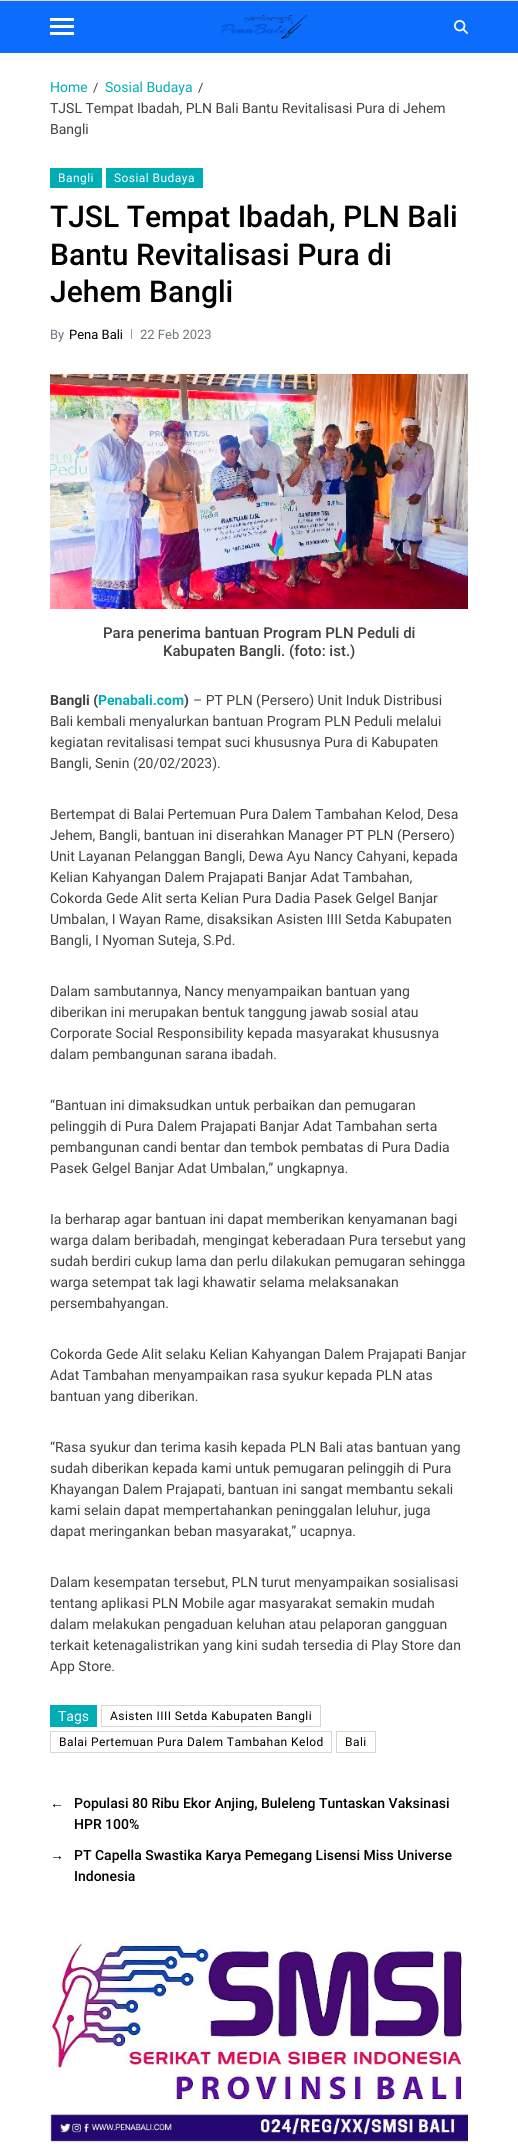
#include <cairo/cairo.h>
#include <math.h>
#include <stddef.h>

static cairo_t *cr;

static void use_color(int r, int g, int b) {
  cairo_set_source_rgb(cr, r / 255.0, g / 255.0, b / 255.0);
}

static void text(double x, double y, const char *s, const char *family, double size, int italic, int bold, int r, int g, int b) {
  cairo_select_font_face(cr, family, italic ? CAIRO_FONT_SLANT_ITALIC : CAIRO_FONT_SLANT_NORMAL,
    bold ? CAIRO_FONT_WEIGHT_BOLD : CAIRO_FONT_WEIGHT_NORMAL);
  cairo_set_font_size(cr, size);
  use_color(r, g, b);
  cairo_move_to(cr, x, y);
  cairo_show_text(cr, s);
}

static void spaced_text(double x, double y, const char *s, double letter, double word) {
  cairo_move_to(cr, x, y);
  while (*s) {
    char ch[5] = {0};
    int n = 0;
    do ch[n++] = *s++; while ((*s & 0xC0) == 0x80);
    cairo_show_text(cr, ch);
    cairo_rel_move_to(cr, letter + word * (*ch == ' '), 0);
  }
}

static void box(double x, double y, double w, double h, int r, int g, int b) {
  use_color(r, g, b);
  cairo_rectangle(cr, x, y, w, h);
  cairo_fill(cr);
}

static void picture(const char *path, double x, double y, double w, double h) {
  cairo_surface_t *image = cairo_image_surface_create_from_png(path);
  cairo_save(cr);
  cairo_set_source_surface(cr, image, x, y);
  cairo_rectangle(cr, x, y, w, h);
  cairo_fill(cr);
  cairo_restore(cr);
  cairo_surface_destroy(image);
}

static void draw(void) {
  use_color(255, 255, 255);
  cairo_paint(cr);
  box(0, 0, 518, 1, 220, 215, 202);
  box(0, 1, 518, 52, 12, 108, 252);
  box(50, 18, 24, 3, 255, 255, 255);
  box(50, 25, 24, 3, 255, 255, 255);
  box(50, 32, 24, 3, 255, 255, 255);
  picture("img_01.png", 221, 15, 86, 24);
  picture("img_02.png", 454, 20, 14, 14);
  box(50, 168, 52, 20, 0, 173, 181);
  box(106, 168, 97, 20, 0, 173, 181);
  box(131, 329, 1, 10, 152, 158, 164);
  picture("img_03.png", 50, 374, 418, 235);
  box(50, 1705, 47, 22, 0, 173, 181);
  cairo_rectangle(cr, 101.5, 1705.5, 219, 21);
  use_color(220, 215, 202);
  cairo_set_line_width(cr, 1);
  cairo_stroke(cr);
  cairo_rectangle(cr, 50.5, 1731.5, 281, 21);
  cairo_stroke(cr);
  cairo_rectangle(cr, 336.5, 1731.5, 39, 21);
  cairo_stroke(cr);
  picture("img_04.png", 50, 1941, 418, 201);
  text(50, 92, "Home", "Roboto", 14, 0, 0, 0, 173, 181);
  text(93, 92, "/", "Roboto", 13, 0, 0, 64, 64, 64);
  text(105, 92, "Sosial Budaya", "Roboto", 14, 0, 0, 0, 173, 181);
  text(198, 92, "/", "Roboto", 13, 0, 0, 64, 64, 64);
  text(50, 113, "TJSL Tempat Ibadah, PLN Bali Bantu Revitalisasi Pura di Jehem", "Roboto", 14, 0, 0, 64, 64, 64);
  text(50, 134, "Bangli", "Roboto", 14, 0, 0, 64, 64, 64);
  cairo_set_font_size(cr, 12);
  use_color(255, 255, 255);
  spaced_text(58, 182, "Bangli", 0.45, 0);
  spaced_text(114, 182, "Sosial Budaya", 0.45, 0);
  text(50, 227, "TJSL Tempat Ibadah, PLN Bali", "Roboto Medium", 30, 0, 0, 0, 0, 0);
  text(50, 265, "Bantu Revitalisasi Pura di", "Roboto Medium", 30, 0, 0, 0, 0, 0);
  text(50, 302, "Jehem Bangli", "Roboto Medium", 30, 0, 0, 0, 0, 0);
  text(50, 339, "By", "Roboto", 13, 0, 0, 108, 117, 125);
  text(69, 339, "Pena Bali", "Roboto", 13, 0, 0, 0, 0, 0);
  text(140, 339, "22 Feb 2023", "Roboto", 13, 0, 0, 108, 117, 125);
  text(103, 638, "Para penerima bantuan Program PLN Peduli di", "Roboto Medium", 15, 0, 0, 64, 64, 64);
  text(163, 656, "Kabupaten Bangli. (foto: ist.)", "Roboto Medium", 15, 0, 0, 64, 64, 64);
  text(50, 705, "Bangli (", "Roboto", 14, 0, 1, 64, 64, 64);
  text(98, 705, "Penabali.com", "Roboto", 14, 0, 1, 0, 173, 181);
  text(184, 705, ")", "Roboto", 14, 0, 1, 64, 64, 64);
  text(193, 705, "– PT PLN (Persero) Unit Induk Distribusi", "Roboto", 14, 0, 0, 64, 64, 64);
  text(50, 726, "Bali kembali menyalurkan bantuan Program PLN Peduli melalui", "Roboto", 14, 0, 0, 64, 64, 64);
  text(50, 747, "kegiatan revitalisasi tempat suci khususnya Pura di Kabupaten", "Roboto", 14, 0, 0, 64, 64, 64);
  text(50, 768, "Bangli, Senin (20/02/2023).", "Roboto", 14, 0, 0, 64, 64, 64);
  text(50, 819, "Bertempat di Balai Pertemuan Pura Dalem Tambahan Kelod, Desa", "Roboto", 14, 0, 0, 64, 64, 64);
  text(50, 840, "Jehem, Bangli, bantuan ini diserahkan Manager PT PLN (Persero)", "Roboto", 14, 0, 0, 64, 64, 64);
  text(50, 861, "Unit Layanan Pelanggan Bangli, Dewa Ayu Nancy Cahyani, kepada", "Roboto", 14, 0, 0, 64, 64, 64);
  text(50, 882, "Kelian Kahyangan Dalem Prajapati Banjar Adat Tambahan,", "Roboto", 14, 0, 0, 64, 64, 64);
  text(50, 903, "Cokorda Gede Alit serta Kelian Pura Dadia Pasek Gelgel Banjar", "Roboto", 14, 0, 0, 64, 64, 64);
  text(50, 924, "Umbalan, I Wayan Rame, disaksikan Asisten IIII Setda Kabupaten", "Roboto", 14, 0, 0, 64, 64, 64);
  text(50, 945, "Bangli, I Nyoman Suteja, S.Pd.", "Roboto", 14, 0, 0, 64, 64, 64);
  text(50, 996, "Dalam sambutannya, Nancy menyampaikan bantuan yang", "Roboto", 14, 0, 0, 64, 64, 64);
  text(50, 1017, "diberikan ini merupakan bentuk tanggung jawab sosial atau", "Roboto", 14, 0, 0, 64, 64, 64);
  text(50, 1038, "Corporate Social Responsibility kepada masyarakat khususnya", "Roboto", 14, 0, 0, 64, 64, 64);
  text(50, 1059, "dalam pembangunan sarana ibadah.", "Roboto", 14, 0, 0, 64, 64, 64);
  text(50, 1110, "“Bantuan ini dimaksudkan untuk perbaikan dan pemugaran", "Roboto", 14, 0, 0, 64, 64, 64);
  text(50, 1131, "pelinggih di Pura Dalem Prajapati Banjar Adat Tambahan serta", "Roboto", 14, 0, 0, 64, 64, 64);
  text(50, 1152, "pembangunan candi bentar dan tembok pembatas di Pura Dadia", "Roboto", 14, 0, 0, 64, 64, 64);
  text(50, 1173, "Pasek Gelgel Banjar Adat Umbalan,” ungkapnya.", "Roboto", 14, 0, 0, 64, 64, 64);
  text(50, 1224, "Ia berharap agar bantuan ini dapat memberikan kenyamanan bagi", "Roboto", 14, 0, 0, 64, 64, 64);
  text(50, 1245, "warga dalam beribadah, mengingat keberadaan Pura tersebut yang", "Roboto", 14, 0, 0, 64, 64, 64);
  text(50, 1266, "sudah berdiri cukup lama dan perlu dilakukan pemugaran sehingga", "Roboto", 14, 0, 0, 64, 64, 64);
  text(50, 1287, "warga setempat tak lagi khawatir selama melaksanakan", "Roboto", 14, 0, 0, 64, 64, 64);
  text(50, 1308, "persembahyangan.", "Roboto", 14, 0, 0, 64, 64, 64);
  text(50, 1359, "Cokorda Gede Alit selaku Kelian Kahyangan Dalem Prajapati Banjar", "Roboto", 14, 0, 0, 64, 64, 64);
  text(50, 1380, "Adat Tambahan menyampaikan rasa syukur kepada PLN atas", "Roboto", 14, 0, 0, 64, 64, 64);
  text(50, 1401, "bantuan yang diberikan.", "Roboto", 14, 0, 0, 64, 64, 64);
  text(50, 1452, "“Rasa syukur dan terima kasih kepada PLN Bali atas bantuan yang", "Roboto", 14, 0, 0, 64, 64, 64);
  text(50, 1473, "sudah diberikan kepada kami untuk pemugaran pelinggih di Pura", "Roboto", 14, 0, 0, 64, 64, 64);
  text(50, 1494, "Khayangan Dalem Prajapati, bantuan ini sangat membantu sekali", "Roboto", 14, 0, 0, 64, 64, 64);
  text(50, 1515, "kami selain dapat mempertahankan peninggalan leluhur, juga", "Roboto", 14, 0, 0, 64, 64, 64);
  text(50, 1536, "dapat meringankan beban masyarakat,” ucapnya.", "Roboto", 14, 0, 0, 64, 64, 64);
  text(50, 1587, "Dalam kesempatan tersebut, PLN turut menyampaikan sosialisasi", "Roboto", 14, 0, 0, 64, 64, 64);
  text(50, 1608, "tentang aplikasi PLN Mobile agar masyarakat semakin mudah", "Roboto", 14, 0, 0, 64, 64, 64);
  text(50, 1629, "dalam melakukan pengaduan keluhan atau pelaporan gangguan", "Roboto", 14, 0, 0, 64, 64, 64);
  text(50, 1650, "terkait ketenagalistrikan yang kini sudah tersedia di Play Store dan", "Roboto", 14, 0, 0, 64, 64, 64);
  text(50, 1671, "App Store.", "Roboto", 14, 0, 0, 64, 64, 64);
  text(58, 1721, "Tags", "Roboto", 14, 0, 0, 255, 255, 255);
  cairo_set_font_size(cr, 12);
  use_color(0, 0, 0);
  spaced_text(110, 1720, "Asisten IIII Setda Kabupaten Bangli", 0.45, 0);
  spaced_text(59, 1746, "Balai Pertemuan Pura Dalem Tambahan Kelod", 0.45, 0);
  spaced_text(345, 1746, "Bali", 0.45, 0);
  text(50, 1808, "←", "Liberation Sans", 14, 0, 0, 0, 0, 0);
  text(74, 1808, "Populasi 80 Ribu Ekor Anjing, Buleleng Tuntaskan Vaksinasi", "Roboto Medium", 14, 0, 0, 0, 0, 0);
  text(74, 1829, "HPR 100%", "Roboto Medium", 14, 0, 0, 0, 0, 0);
  text(50, 1860, "→", "Liberation Sans", 14, 0, 0, 0, 0, 0);
  text(74, 1860, "PT Capella Swastika Karya Pemegang Lisensi Miss Universe", "Roboto Medium", 14, 0, 0, 0, 0, 0);
  text(74, 1881, "Indonesia", "Roboto Medium", 14, 0, 0, 0, 0, 0);
}

int main(void) {
  cairo_surface_t *surface = cairo_image_surface_create(CAIRO_FORMAT_RGB24, 518, 2144);
  cr = cairo_create(surface);
  cairo_font_options_t *options = cairo_font_options_create();
  cairo_font_options_set_hint_metrics(options, CAIRO_HINT_METRICS_OFF);
  cairo_font_options_set_hint_style(options, CAIRO_HINT_STYLE_NONE);
  cairo_set_font_options(cr, options);
  cairo_set_miter_limit(cr, 4);
  draw();
  cairo_surface_write_to_png(surface, "out.png");
  cairo_font_options_destroy(options);
  cairo_destroy(cr);
  cairo_surface_destroy(surface);
  return 0;
}
